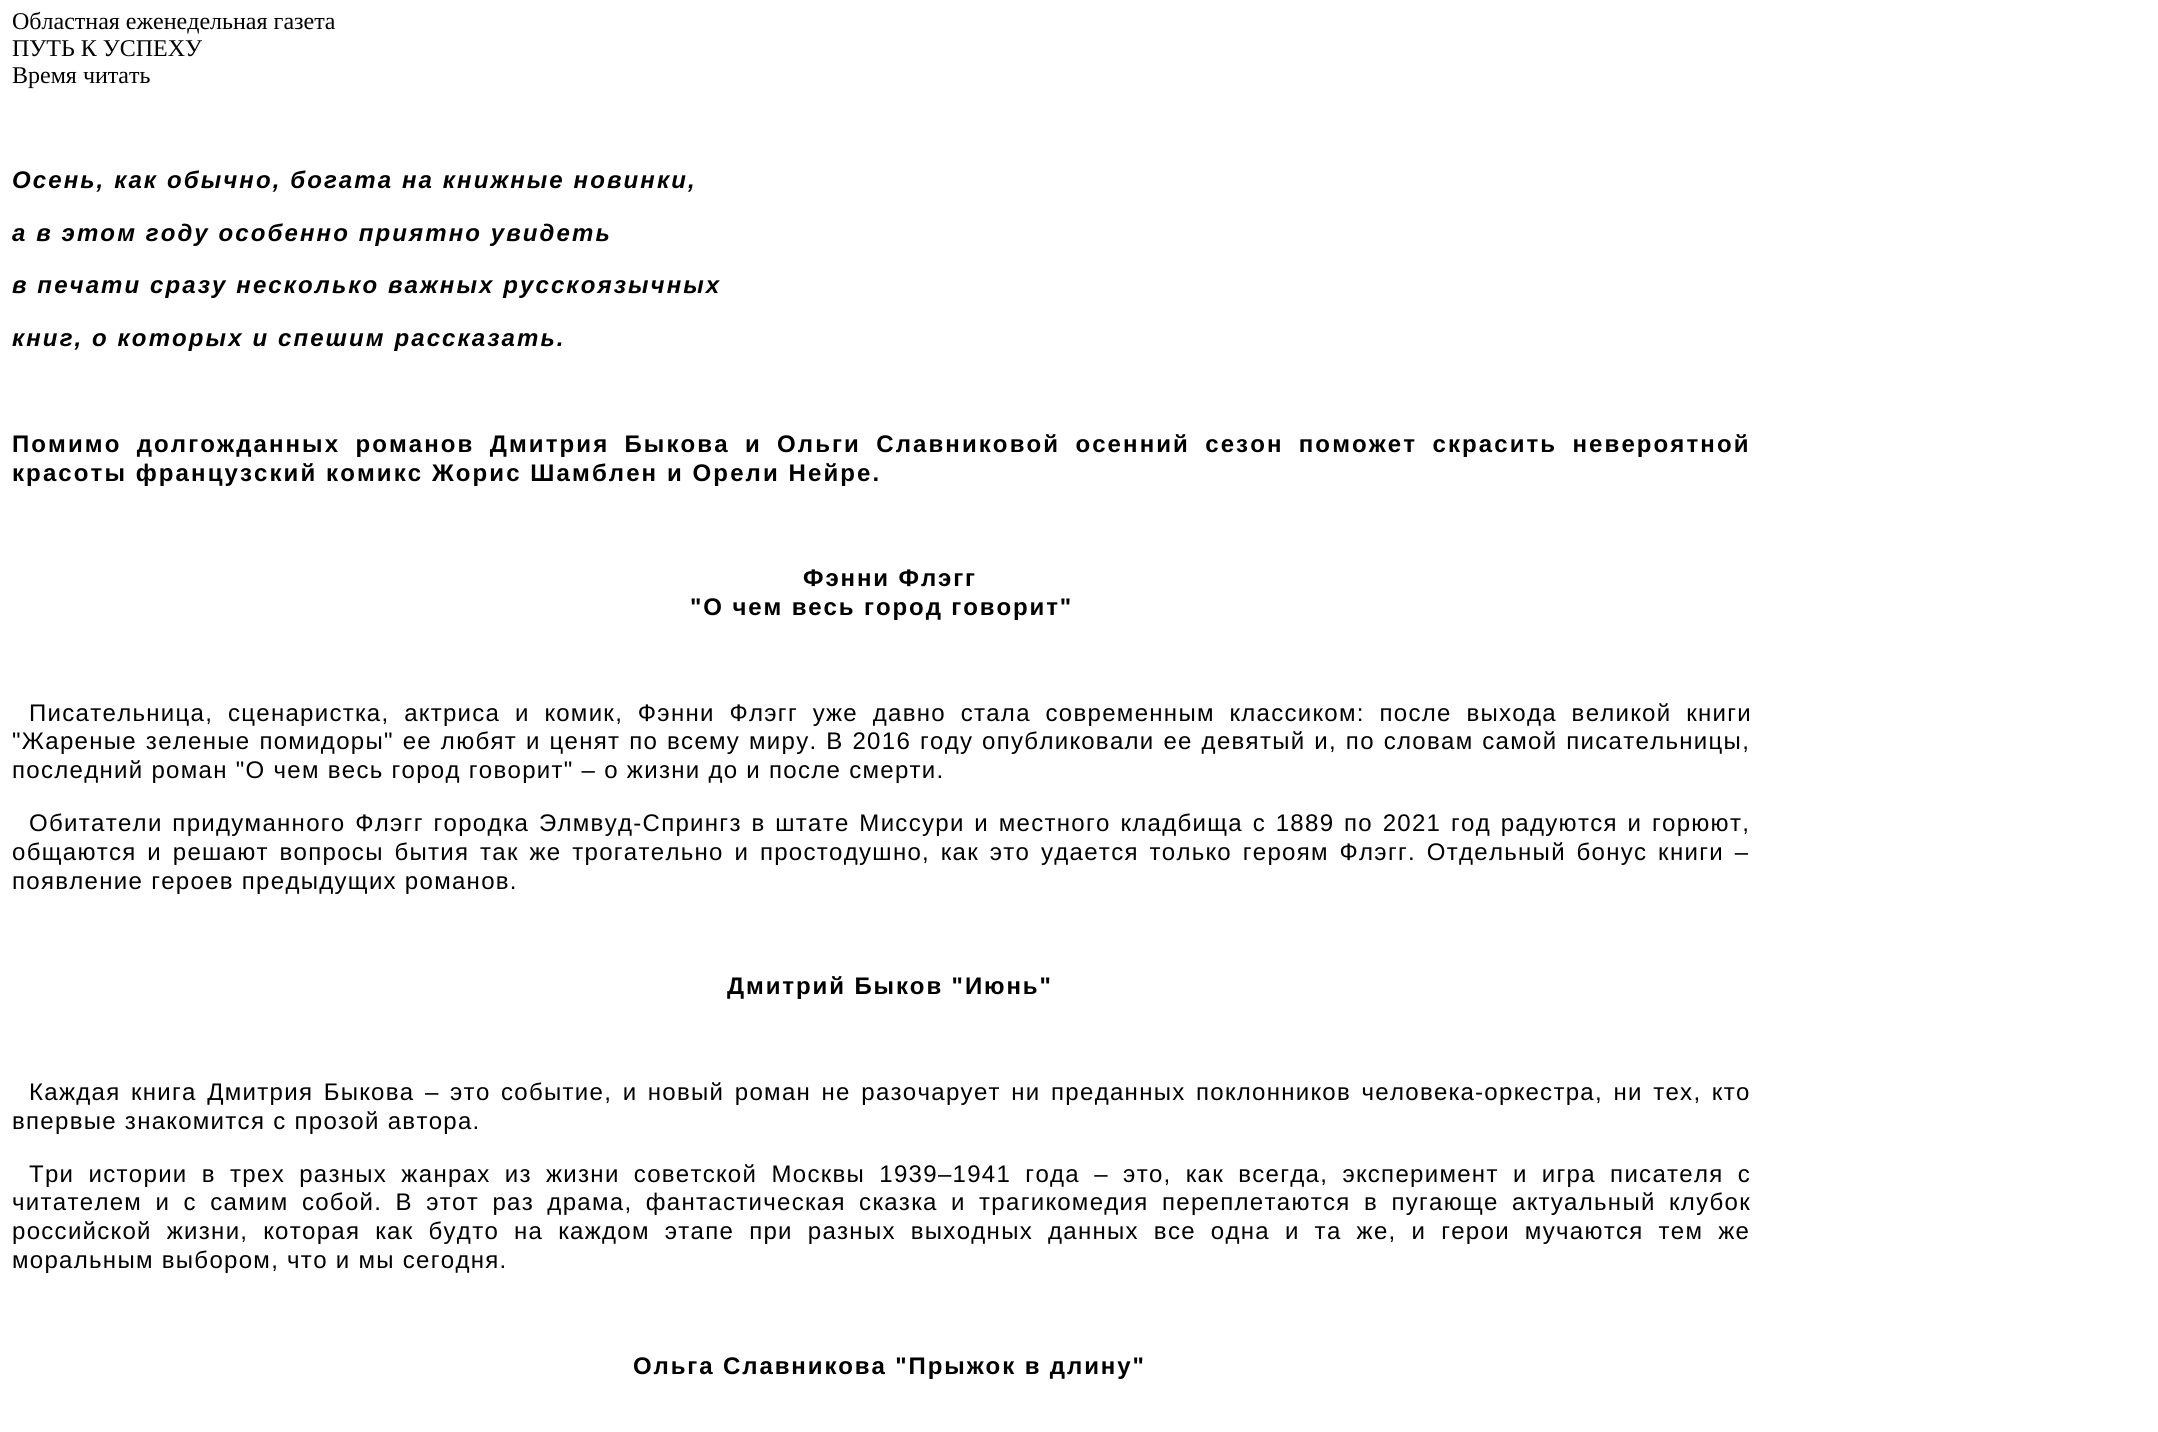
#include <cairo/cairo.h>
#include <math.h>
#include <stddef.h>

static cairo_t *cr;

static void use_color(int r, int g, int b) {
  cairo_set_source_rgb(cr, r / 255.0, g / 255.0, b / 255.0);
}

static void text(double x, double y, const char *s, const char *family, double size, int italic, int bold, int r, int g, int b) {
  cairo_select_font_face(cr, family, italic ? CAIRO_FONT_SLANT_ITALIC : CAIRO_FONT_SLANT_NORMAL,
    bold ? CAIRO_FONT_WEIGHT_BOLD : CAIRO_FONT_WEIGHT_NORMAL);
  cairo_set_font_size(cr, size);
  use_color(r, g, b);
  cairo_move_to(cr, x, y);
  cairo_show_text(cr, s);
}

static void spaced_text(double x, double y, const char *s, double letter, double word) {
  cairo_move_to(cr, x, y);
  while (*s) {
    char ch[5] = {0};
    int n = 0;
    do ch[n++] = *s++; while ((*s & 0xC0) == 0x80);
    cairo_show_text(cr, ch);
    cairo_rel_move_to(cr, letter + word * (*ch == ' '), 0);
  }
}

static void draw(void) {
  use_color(255, 255, 255);
  cairo_paint(cr);
  text(12, 29, "Областная еженедельная газета", "Liberation Serif", 24, 0, 0, 0, 0, 0);
  text(12, 56, "ПУТЬ К УСПЕХУ", "Liberation Serif", 24, 0, 0, 0, 0, 0);
  text(12, 83, "Время читать", "Liberation Serif", 24, 0, 0, 0, 0, 0);
  cairo_select_font_face(cr, "Liberation Sans", CAIRO_FONT_SLANT_ITALIC, CAIRO_FONT_WEIGHT_BOLD);
  spaced_text(12, 188, "Осень, как обычно, богата на книжные новинки,", 2.1, 0);
  spaced_text(12, 241, "а в этом году особенно приятно увидеть", 2.1, 0);
  spaced_text(12, 293, "в печати сразу несколько важных русскоязычных", 2.1, 0);
  spaced_text(12, 346, "книг, о которых и спешим рассказать.", 2.1, 0);
  cairo_select_font_face(cr, "Liberation Sans", CAIRO_FONT_SLANT_NORMAL, CAIRO_FONT_WEIGHT_BOLD);
  spaced_text(12, 452, "Помимо долгожданных романов Дмитрия Быкова и Ольги Славниковой осенний сезон поможет скрасить невероятной", 2.1, 6.5);
  spaced_text(12, 481, "красоты французский комикс Жорис Шамблен и Орели Нейре.", 2.1, 0);
  spaced_text(803, 586, "Фэнни Флэгг", 1.9, 0);
  spaced_text(690, 615, "\"О чем весь город говорит\"", 1.9, 0);
  cairo_select_font_face(cr, "Liberation Sans", CAIRO_FONT_SLANT_NORMAL, CAIRO_FONT_WEIGHT_NORMAL);
  spaced_text(29, 721, "Писательница, сценаристка, актриса и комик, Фэнни Флэгг уже давно стала современным классиком: после выхода великой книги", 1.3, 6.75);
  spaced_text(12, 749, "\"Жареные зеленые помидоры\" ее любят и ценят по всему миру. В 2016 году опубликовали ее девятый и, по словам самой писательницы,", 1.3, 0.9);
  spaced_text(12, 778, "последний роман \"О чем весь город говорит\" – о жизни до и после смерти.", 1.3, 0);
  spaced_text(29, 831, "Обитатели придуманного Флэгг городка Элмвуд-Спрингз в штате Миссури и местного кладбища с 1889 по 2021 год радуются и горюют,", 1.3, 1.75);
  spaced_text(12, 860, "общаются и решают вопросы бытия так же трогательно и простодушно, как это удается только героям Флэгг. Отдельный бонус книги –", 1.3, 2.75);
  spaced_text(12, 889, "появление героев предыдущих романов.", 1.3, 0);
  cairo_select_font_face(cr, "Liberation Sans", CAIRO_FONT_SLANT_NORMAL, CAIRO_FONT_WEIGHT_BOLD);
  spaced_text(727, 994, "Дмитрий Быков \"Июнь\"", 1.9, 0);
  cairo_select_font_face(cr, "Liberation Sans", CAIRO_FONT_SLANT_NORMAL, CAIRO_FONT_WEIGHT_NORMAL);
  spaced_text(29, 1100, "Каждая книга Дмитрия Быкова – это событие, и новый роман не разочарует ни преданных поклонников человека-оркестра, ни тех, кто", 1.3, 2.5);
  spaced_text(12, 1129, "впервые знакомится с прозой автора.", 1.3, 0);
  spaced_text(29, 1182, "Три истории в трех разных жанрах из жизни советской Москвы 1939–1941 года – это, как всегда, эксперимент и игра писателя с", 1.3, 6.25);
  spaced_text(12, 1210, "читателем и с самим собой. В этот раз драма, фантастическая сказка и трагикомедия переплетаются в пугающе актуальный клубок", 1.3, 5.4);
  spaced_text(12, 1239, "российской жизни, которая как будто на каждом этапе при разных выходных данных все одна и та же, и герои мучаются тем же", 1.3, 7);
  spaced_text(12, 1268, "моральным выбором, что и мы сегодня.", 1.3, 0);
  cairo_select_font_face(cr, "Liberation Sans", CAIRO_FONT_SLANT_NORMAL, CAIRO_FONT_WEIGHT_BOLD);
  spaced_text(633, 1374, "Ольга Славникова \"Прыжок в длину\"", 1.9, 0);
}

int main(void) {
  cairo_surface_t *surface = cairo_image_surface_create(CAIRO_FORMAT_RGB24, 2158, 1432);
  cr = cairo_create(surface);
  cairo_font_options_t *options = cairo_font_options_create();
  cairo_font_options_set_hint_metrics(options, CAIRO_HINT_METRICS_OFF);
  cairo_font_options_set_hint_style(options, CAIRO_HINT_STYLE_NONE);
  cairo_set_font_options(cr, options);
  cairo_set_miter_limit(cr, 4);
  draw();
  cairo_surface_write_to_png(surface, "out.png");
  cairo_font_options_destroy(options);
  cairo_destroy(cr);
  cairo_surface_destroy(surface);
  return 0;
}
